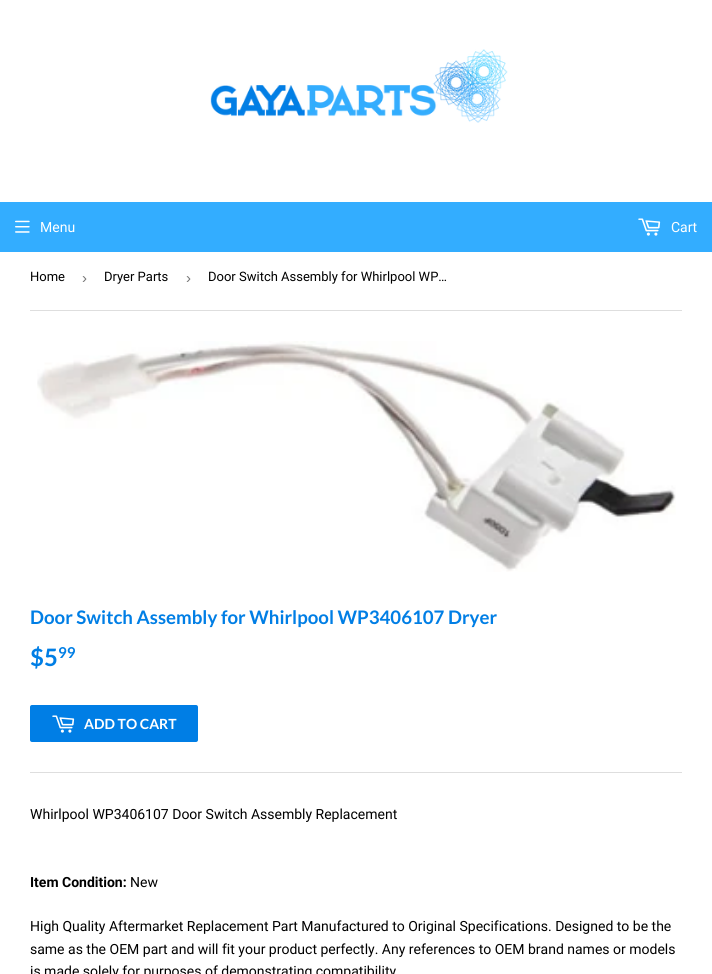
#include <cairo/cairo.h>
#include <math.h>
#include <stddef.h>

static cairo_t *cr;

static void use_color(int r, int g, int b) {
  cairo_set_source_rgb(cr, r / 255.0, g / 255.0, b / 255.0);
}

static void text(double x, double y, const char *s, const char *family, double size, int italic, int bold, int r, int g, int b) {
  cairo_select_font_face(cr, family, italic ? CAIRO_FONT_SLANT_ITALIC : CAIRO_FONT_SLANT_NORMAL,
    bold ? CAIRO_FONT_WEIGHT_BOLD : CAIRO_FONT_WEIGHT_NORMAL);
  cairo_set_font_size(cr, size);
  use_color(r, g, b);
  cairo_move_to(cr, x, y);
  cairo_show_text(cr, s);
}

static void box(double x, double y, double w, double h, int r, int g, int b) {
  use_color(r, g, b);
  cairo_rectangle(cr, x, y, w, h);
  cairo_fill(cr);
}

static void round_rect(double x, double y, double w, double h, double r) {
  cairo_new_sub_path(cr);
  cairo_arc(cr, x + w - r, y + h - r, r, 0, M_PI / 2);
  cairo_arc(cr, x + r, y + h - r, r, M_PI / 2, M_PI);
  cairo_arc(cr, x + r, y + r, r, M_PI, 1.5 * M_PI);
  cairo_arc(cr, x + w - r, y + r, r, 1.5 * M_PI, 2 * M_PI);
  cairo_close_path(cr);
}

static void picture(const char *path, double x, double y, double w, double h) {
  cairo_surface_t *image = cairo_image_surface_create_from_png(path);
  cairo_save(cr);
  cairo_set_source_surface(cr, image, x, y);
  cairo_rectangle(cr, x, y, w, h);
  cairo_fill(cr);
  cairo_restore(cr);
  cairo_surface_destroy(image);
}

static void draw(void) {
  use_color(255, 255, 255);
  cairo_paint(cr);
  picture("img_01.png", 210, 49, 298, 74);
  box(0, 202, 712, 50, 51, 173, 255);
  picture("img_02.png", 15, 220, 15, 13);
  picture("img_03.png", 638, 218, 23, 18);
  box(30, 310, 652, 1, 222, 222, 222);
  picture("img_04.png", 37, 341, 639, 231);
  use_color(0, 126, 229);
  round_rect(30, 705, 168, 37, 2);
  cairo_fill(cr);
  picture("img_05.png", 52, 715, 23, 18);
  box(30, 772, 652, 1, 222, 222, 222);
  text(40, 232, "Menu", "Roboto", 14, 0, 0, 255, 255, 255);
  text(671, 232, "Cart", "Roboto", 14, 0, 0, 255, 255, 255);
  text(30, 281, "Home", "Roboto", 13, 0, 0, 0, 0, 0);
  text(82, 283, "›", "Liberation Sans", 15, 0, 0, 118, 118, 118);
  text(104, 281, "Dryer Parts", "Roboto", 13, 0, 0, 0, 0, 0);
  text(186, 283, "›", "Liberation Sans", 15, 0, 0, 118, 118, 118);
  text(208, 281, "Door Switch Assembly for Whirlpool WP…", "Roboto", 13, 0, 0, 0, 0, 0);
  text(30, 624, "Door Switch Assembly for Whirlpool WP3406107 Dryer", "Lato", 18.65, 0, 1, 0, 126, 229);
  text(30, 666, "$5", "Lato", 24, 0, 1, 0, 126, 229);
  text(58, 658, "99", "Lato", 15, 0, 1, 0, 126, 229);
  text(84, 729, "ADD TO CART", "Lato", 14, 0, 1, 255, 255, 255);
  text(30, 819, "Whirlpool WP3406107 Door Switch Assembly Replacement", "Roboto", 14, 0, 0, 0, 0, 0);
  text(30, 887, "Item Condition:", "Roboto", 14, 0, 1, 0, 0, 0);
  text(130, 887, "New", "Roboto", 14, 0, 0, 0, 0, 0);
  text(30, 931, "High Quality Aftermarket Replacement Part Manufactured to Original Specifications. Designed to be the", "Roboto", 14, 0, 0, 0, 0, 0);
  text(30, 954, "same as the OEM part and will fit your product perfectly. Any references to OEM brand names or models", "Roboto", 14, 0, 0, 0, 0, 0);
  text(30, 976, "is made solely for purposes of demonstrating compatibility", "Roboto", 14, 0, 0, 0, 0, 0);
}

int main(void) {
  cairo_surface_t *surface = cairo_image_surface_create(CAIRO_FORMAT_RGB24, 712, 974);
  cr = cairo_create(surface);
  cairo_font_options_t *options = cairo_font_options_create();
  cairo_font_options_set_hint_metrics(options, CAIRO_HINT_METRICS_OFF);
  cairo_font_options_set_hint_style(options, CAIRO_HINT_STYLE_NONE);
  cairo_set_font_options(cr, options);
  cairo_set_miter_limit(cr, 4);
  draw();
  cairo_surface_write_to_png(surface, "out.png");
  cairo_font_options_destroy(options);
  cairo_destroy(cr);
  cairo_surface_destroy(surface);
  return 0;
}
